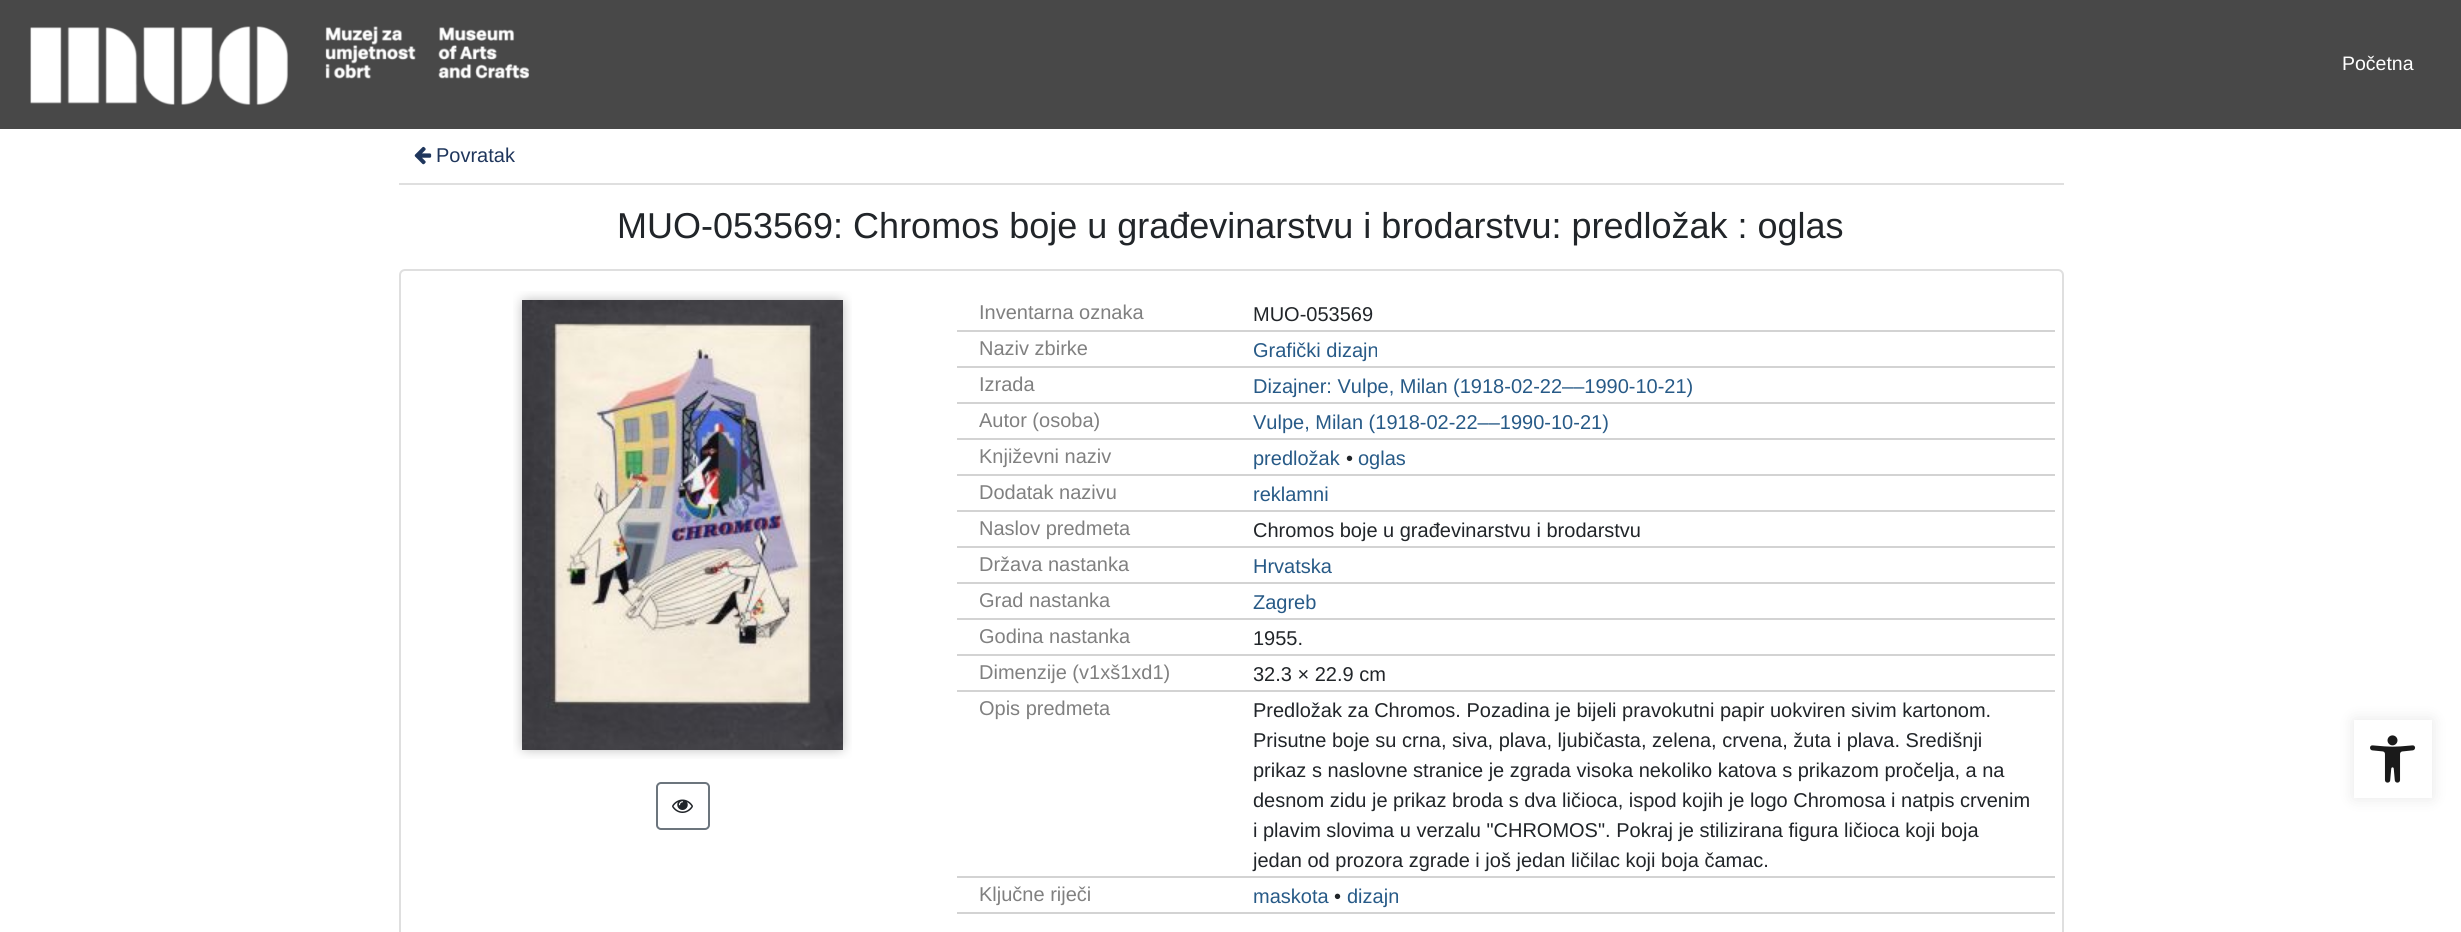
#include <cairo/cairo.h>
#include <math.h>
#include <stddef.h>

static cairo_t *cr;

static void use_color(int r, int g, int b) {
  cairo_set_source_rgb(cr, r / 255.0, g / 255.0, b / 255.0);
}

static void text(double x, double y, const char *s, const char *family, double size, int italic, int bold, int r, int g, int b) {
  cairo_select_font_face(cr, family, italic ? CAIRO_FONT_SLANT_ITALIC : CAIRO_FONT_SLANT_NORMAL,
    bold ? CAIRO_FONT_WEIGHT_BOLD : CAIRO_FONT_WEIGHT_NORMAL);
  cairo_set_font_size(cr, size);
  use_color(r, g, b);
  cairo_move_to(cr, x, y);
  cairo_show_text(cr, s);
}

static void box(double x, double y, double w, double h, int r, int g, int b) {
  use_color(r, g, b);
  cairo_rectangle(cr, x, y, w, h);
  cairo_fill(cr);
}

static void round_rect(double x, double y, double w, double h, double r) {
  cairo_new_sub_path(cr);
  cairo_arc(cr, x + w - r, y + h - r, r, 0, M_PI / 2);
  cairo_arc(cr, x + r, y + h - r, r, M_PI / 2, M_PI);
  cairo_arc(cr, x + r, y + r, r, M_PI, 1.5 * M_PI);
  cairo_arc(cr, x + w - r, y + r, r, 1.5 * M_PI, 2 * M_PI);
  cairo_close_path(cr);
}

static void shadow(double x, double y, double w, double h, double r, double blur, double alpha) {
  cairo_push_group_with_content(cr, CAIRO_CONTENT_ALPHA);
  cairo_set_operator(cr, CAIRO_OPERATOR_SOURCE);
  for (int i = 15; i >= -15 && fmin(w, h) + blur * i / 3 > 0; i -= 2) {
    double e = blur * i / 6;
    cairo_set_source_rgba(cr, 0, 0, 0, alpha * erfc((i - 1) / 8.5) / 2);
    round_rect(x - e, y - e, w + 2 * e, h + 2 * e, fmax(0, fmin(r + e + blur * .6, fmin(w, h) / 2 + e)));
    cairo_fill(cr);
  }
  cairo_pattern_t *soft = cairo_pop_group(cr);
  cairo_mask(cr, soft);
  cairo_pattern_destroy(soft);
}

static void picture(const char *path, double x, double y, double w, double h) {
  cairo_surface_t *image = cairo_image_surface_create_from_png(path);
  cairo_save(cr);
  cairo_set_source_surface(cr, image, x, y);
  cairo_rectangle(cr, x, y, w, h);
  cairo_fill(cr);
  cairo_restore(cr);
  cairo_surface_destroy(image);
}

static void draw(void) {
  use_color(255, 255, 255);
  cairo_paint(cr);
  box(0, 0, 2461, 129, 72, 72, 72);
  picture("img_01.png", 30, 26, 500, 79);
  box(399, 183, 1665, 2, 223, 223, 223);
  picture("img_02.png", 414, 146, 18, 19);
  round_rect(400, 270, 1663, 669, 5);
  cairo_stroke(cr);
  picture("img_03.png", 513, 291, 339, 468);
  round_rect(657, 783, 52, 46, 4);
  use_color(108, 117, 125);
  cairo_stroke(cr);
  picture("img_04.png", 672, 799, 21, 14);
  box(957, 330, 1098, 2, 211, 211, 211);
  box(957, 366, 1098, 2, 211, 211, 211);
  box(957, 402, 1098, 2, 211, 211, 211);
  box(957, 438, 1098, 2, 211, 211, 211);
  box(957, 474, 1098, 2, 211, 211, 211);
  box(957, 510, 1098, 2, 211, 211, 211);
  box(957, 546, 1098, 2, 211, 211, 211);
  box(957, 582, 1098, 2, 211, 211, 211);
  box(957, 618, 1098, 2, 211, 211, 211);
  box(957, 654, 1098, 2, 211, 211, 211);
  box(957, 690, 1098, 2, 211, 211, 211);
  box(957, 876, 1098, 2, 211, 211, 211);
  box(957, 912, 1098, 2, 211, 211, 211);
  use_color(0, 0, 0);
  shadow(2354, 720, 78, 78, 0, 7.5, 0.1);
  box(2354, 720, 78, 78, 255, 255, 255);
  picture("img_05.png", 2370, 735, 46, 48);
  text(2342, 70, "Početna", "Liberation Sans", 19.5, 0, 0, 255, 255, 255);
  text(436, 162, "Povratak", "Liberation Sans", 20, 0, 0, 31, 54, 92);
  text(617, 238, "MUO-053569: Chromos boje u građevinarstvu i brodarstvu: predložak : oglas", "Liberation Sans", 36, 0, 0, 33, 37, 41);
  text(979, 319, "Inventarna oznaka", "Liberation Sans", 20, 0, 0, 128, 128, 128);
  text(1253, 321, "MUO-053569", "Liberation Sans", 20, 0, 0, 33, 37, 41);
  text(979, 355, "Naziv zbirke", "Liberation Sans", 20, 0, 0, 128, 128, 128);
  text(1253, 357, "Grafički dizajn", "Liberation Sans", 20, 0, 0, 39, 90, 135);
  text(979, 391, "Izrada", "Liberation Sans", 20, 0, 0, 128, 128, 128);
  text(1253, 393, "Dizajner: Vulpe, Milan (1918-02-22––1990-10-21)", "Liberation Sans", 20, 0, 0, 39, 90, 135);
  text(979, 427, "Autor (osoba)", "Liberation Sans", 20, 0, 0, 128, 128, 128);
  text(1253, 429, "Vulpe, Milan (1918-02-22––1990-10-21)", "Liberation Sans", 20, 0, 0, 39, 90, 135);
  text(979, 463, "Književni naziv", "Liberation Sans", 20, 0, 0, 128, 128, 128);
  text(1253, 465, "predložak", "Liberation Sans", 20, 0, 0, 39, 90, 135);
  text(1346, 465, "•", "Liberation Sans", 20, 0, 0, 33, 37, 41);
  text(1358, 465, "oglas", "Liberation Sans", 20, 0, 0, 39, 90, 135);
  text(979, 499, "Dodatak nazivu", "Liberation Sans", 20, 0, 0, 128, 128, 128);
  text(1253, 501, "reklamni", "Liberation Sans", 20, 0, 0, 39, 90, 135);
  text(979, 535, "Naslov predmeta", "Liberation Sans", 20, 0, 0, 128, 128, 128);
  text(1253, 537, "Chromos boje u građevinarstvu i brodarstvu", "Liberation Sans", 20, 0, 0, 33, 37, 41);
  text(979, 571, "Država nastanka", "Liberation Sans", 20, 0, 0, 128, 128, 128);
  text(1253, 573, "Hrvatska", "Liberation Sans", 20, 0, 0, 39, 90, 135);
  text(979, 607, "Grad nastanka", "Liberation Sans", 20, 0, 0, 128, 128, 128);
  text(1253, 609, "Zagreb", "Liberation Sans", 20, 0, 0, 39, 90, 135);
  text(979, 643, "Godina nastanka", "Liberation Sans", 20, 0, 0, 128, 128, 128);
  text(1253, 645, "1955.", "Liberation Sans", 20, 0, 0, 33, 37, 41);
  text(979, 679, "Dimenzije (v1xš1xd1)", "Liberation Sans", 20, 0, 0, 128, 128, 128);
  text(1253, 681, "32.3 × 22.9 cm", "Liberation Sans", 20, 0, 0, 33, 37, 41);
  text(979, 715, "Opis predmeta", "Liberation Sans", 20, 0, 0, 128, 128, 128);
  text(1253, 717, "Predložak za Chromos. Pozadina je bijeli pravokutni papir uokviren sivim kartonom.", "Liberation Sans", 20, 0, 0, 33, 37, 41);
  text(1253, 747, "Prisutne boje su crna, siva, plava, ljubičasta, zelena, crvena, žuta i plava. Središnji", "Liberation Sans", 20, 0, 0, 33, 37, 41);
  text(1253, 777, "prikaz s naslovne stranice je zgrada visoka nekoliko katova s prikazom pročelja, a na", "Liberation Sans", 20, 0, 0, 33, 37, 41);
  text(1253, 807, "desnom zidu je prikaz broda s dva ličioca, ispod kojih je logo Chromosa i natpis crvenim", "Liberation Sans", 20, 0, 0, 33, 37, 41);
  text(1253, 837, "i plavim slovima u verzalu \"CHROMOS\". Pokraj je stilizirana figura ličioca koji boja", "Liberation Sans", 20, 0, 0, 33, 37, 41);
  text(1253, 867, "jedan od prozora zgrade i još jedan ličilac koji boja čamac.", "Liberation Sans", 20, 0, 0, 33, 37, 41);
  text(979, 901, "Ključne riječi", "Liberation Sans", 20, 0, 0, 128, 128, 128);
  text(1253, 903, "maskota", "Liberation Sans", 20, 0, 0, 39, 90, 135);
  text(1334, 903, "•", "Liberation Sans", 20, 0, 0, 33, 37, 41);
  text(1347, 903, "dizajn", "Liberation Sans", 20, 0, 0, 39, 90, 135);
}

int main(void) {
  cairo_surface_t *surface = cairo_image_surface_create(CAIRO_FORMAT_RGB24, 2461, 932);
  cr = cairo_create(surface);
  cairo_font_options_t *options = cairo_font_options_create();
  cairo_font_options_set_hint_metrics(options, CAIRO_HINT_METRICS_OFF);
  cairo_font_options_set_hint_style(options, CAIRO_HINT_STYLE_NONE);
  cairo_set_font_options(cr, options);
  cairo_set_miter_limit(cr, 4);
  draw();
  cairo_surface_write_to_png(surface, "out.png");
  cairo_font_options_destroy(options);
  cairo_destroy(cr);
  cairo_surface_destroy(surface);
  return 0;
}
